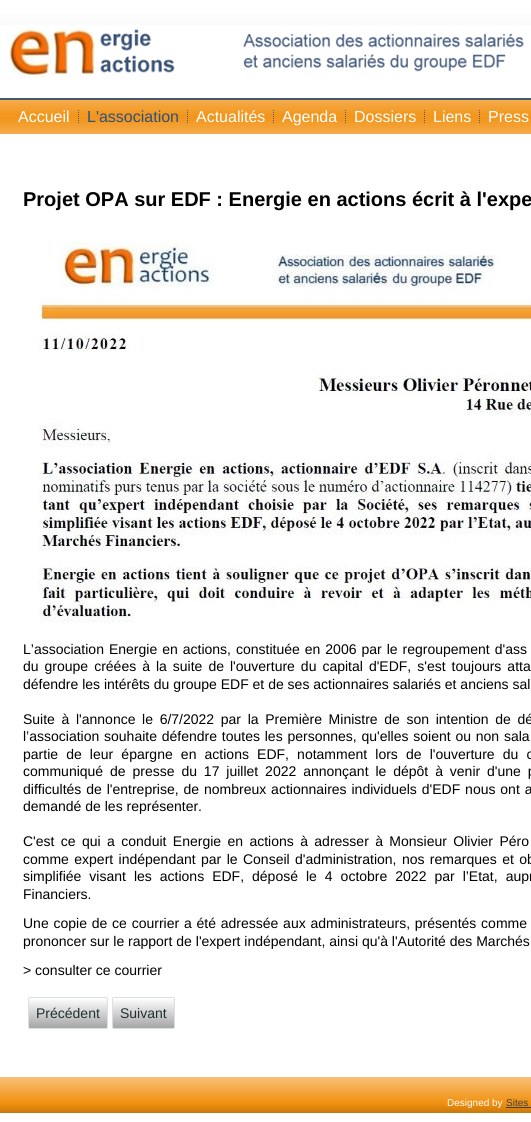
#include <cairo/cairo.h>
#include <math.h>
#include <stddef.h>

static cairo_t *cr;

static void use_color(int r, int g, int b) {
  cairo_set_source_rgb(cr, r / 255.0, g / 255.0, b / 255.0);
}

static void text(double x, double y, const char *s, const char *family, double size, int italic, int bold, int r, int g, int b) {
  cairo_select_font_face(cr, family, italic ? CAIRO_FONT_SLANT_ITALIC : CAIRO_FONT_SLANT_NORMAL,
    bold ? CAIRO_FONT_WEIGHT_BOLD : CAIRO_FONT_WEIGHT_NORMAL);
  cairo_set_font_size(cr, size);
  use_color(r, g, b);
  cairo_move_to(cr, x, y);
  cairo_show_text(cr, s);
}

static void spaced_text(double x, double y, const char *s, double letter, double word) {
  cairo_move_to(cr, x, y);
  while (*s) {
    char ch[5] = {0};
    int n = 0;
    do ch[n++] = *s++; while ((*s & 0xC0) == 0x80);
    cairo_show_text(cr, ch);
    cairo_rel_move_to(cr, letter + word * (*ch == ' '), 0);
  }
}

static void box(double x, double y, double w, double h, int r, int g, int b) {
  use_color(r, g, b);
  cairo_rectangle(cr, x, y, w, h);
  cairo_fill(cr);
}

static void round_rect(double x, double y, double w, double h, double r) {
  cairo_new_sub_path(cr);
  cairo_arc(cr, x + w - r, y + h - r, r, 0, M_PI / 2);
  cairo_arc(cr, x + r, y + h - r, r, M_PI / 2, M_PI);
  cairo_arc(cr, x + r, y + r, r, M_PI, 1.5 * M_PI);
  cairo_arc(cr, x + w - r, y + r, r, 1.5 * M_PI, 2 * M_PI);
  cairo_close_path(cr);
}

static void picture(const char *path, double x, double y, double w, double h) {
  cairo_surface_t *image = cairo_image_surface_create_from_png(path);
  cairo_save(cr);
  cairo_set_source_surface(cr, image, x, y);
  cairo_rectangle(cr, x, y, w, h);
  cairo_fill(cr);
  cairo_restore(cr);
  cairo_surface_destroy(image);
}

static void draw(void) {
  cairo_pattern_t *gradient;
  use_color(255, 255, 255);
  cairo_paint(cr);
  gradient = cairo_pattern_create_linear(266, 0, 266, 100);
  cairo_pattern_add_color_stop_rgba(gradient, 0, 1, 1, 1, 1);
  cairo_pattern_add_color_stop_rgba(gradient, 1, 0.929, 0.929, 0.929, 1);
  cairo_set_source(cr, gradient);
  cairo_pattern_destroy(gradient);
  cairo_rectangle(cr, 0, 14, 531, 11);
  cairo_fill(cr);
  picture("img_01.png", 0, 25, 531, 75);
  picture("img_02.png", 6, 28, 518, 54);
  gradient = cairo_pattern_create_linear(500, 100, 500, 134);
  cairo_pattern_add_color_stop_rgba(gradient, 0, 0.961, 0.675, 0.302, 1);
  cairo_pattern_add_color_stop_rgba(gradient, 0.4, 0.949, 0.596, 0.129, 1);
  cairo_pattern_add_color_stop_rgba(gradient, 0.5, 0.949, 0.584, 0.11, 1);
  cairo_pattern_add_color_stop_rgba(gradient, 0.6, 0.949, 0.596, 0.129, 1);
  cairo_pattern_add_color_stop_rgba(gradient, 1, 0.961, 0.675, 0.302, 1);
  cairo_set_source(cr, gradient);
  cairo_pattern_destroy(gradient);
  cairo_rectangle(cr, 0, 100, 531, 34);
  cairo_fill(cr);
  picture("img_03.png", 78, 110, 1, 13);
  picture("img_03.png", 187, 110, 1, 13);
  picture("img_03.png", 273, 110, 1, 13);
  picture("img_03.png", 345, 110, 1, 13);
  picture("img_03.png", 424, 110, 1, 13);
  picture("img_03.png", 479, 110, 1, 13);
  picture("img_04.png", 38, 239, 493, 384);
  gradient = cairo_pattern_create_linear(68, 998, 68, 1028);
  cairo_pattern_add_color_stop_rgba(gradient, 0, 1, 1, 1, 1);
  cairo_pattern_add_color_stop_rgba(gradient, 1, 0.651, 0.651, 0.651, 1);
  cairo_set_source(cr, gradient);
  cairo_pattern_destroy(gradient);
  cairo_rectangle(cr, 29, 999, 78, 29);
  cairo_fill(cr);
  round_rect(28.5, 997.5, 79, 31, 1.5);
  use_color(213, 226, 225);
  cairo_set_line_width(cr, 1);
  cairo_stroke(cr);
  gradient = cairo_pattern_create_linear(144, 998, 144, 1028);
  cairo_pattern_add_color_stop_rgba(gradient, 0, 1, 1, 1, 1);
  cairo_pattern_add_color_stop_rgba(gradient, 1, 0.651, 0.651, 0.651, 1);
  cairo_set_source(cr, gradient);
  cairo_pattern_destroy(gradient);
  cairo_rectangle(cr, 113, 999, 61, 29);
  cairo_fill(cr);
  round_rect(112.5, 997.5, 62, 31, 1.5);
  use_color(213, 226, 225);
  cairo_stroke(cr);
  gradient = cairo_pattern_create_linear(500, 1077, 500, 1113);
  cairo_pattern_add_color_stop_rgba(gradient, 0, 0.969, 0.753, 0.471, 1);
  cairo_pattern_add_color_stop_rgba(gradient, 0.73, 0.945, 0.565, 0.055, 1);
  cairo_pattern_add_color_stop_rgba(gradient, 1, 0.792, 0.471, 0.047, 1);
  cairo_set_source(cr, gradient);
  cairo_pattern_destroy(gradient);
  cairo_rectangle(cr, 0, 1077, 531, 36);
  cairo_fill(cr);
  box(506, 1107, 25, 1, 64, 64, 64);
  text(18, 122, "Accueil", "Liberation Sans", 16, 0, 0, 255, 255, 255);
  text(87, 122, "L'association", "Liberation Sans", 16, 0, 0, 45, 81, 129);
  text(196, 122, "Actualités", "Liberation Sans", 16, 0, 0, 255, 255, 255);
  text(282, 122, "Agenda", "Liberation Sans", 16, 0, 0, 255, 255, 255);
  text(354, 122, "Dossiers", "Liberation Sans", 16, 0, 0, 255, 255, 255);
  text(433, 122, "Liens", "Liberation Sans", 16, 0, 0, 255, 255, 255);
  text(488, 122, "Press", "Liberation Sans", 16, 0, 0, 255, 255, 255);
  text(23, 206, "Projet OPA sur EDF : Energie en actions écrit à l'expe", "Liberation Sans", 20, 0, 1, 0, 0, 0);
  cairo_select_font_face(cr, "Liberation Sans", CAIRO_FONT_SLANT_NORMAL, CAIRO_FONT_WEIGHT_NORMAL);
  cairo_set_font_size(cr, 14);
  spaced_text(23, 654, "L’association Energie en actions, constituée en 2006 par le regroupement d'ass", 0, 1.1);
  spaced_text(23, 671, "du groupe créées à la suite de l'ouverture du capital d'EDF, s'est toujours atta", 0, 2.1);
  text(23, 689, "défendre les intérêts du groupe EDF et de ses actionnaires salariés et anciens sal", "Liberation Sans", 14, 0, 0, 0, 0, 0);
  spaced_text(23, 724, "Suite à l'annonce le 6/7/2022 par la Première Ministre de son intention de dé", 0, 2.75);
  spaced_text(23, 741, "l’association souhaite défendre toutes les personnes, qu'elles soient ou non sala", 0, 0.9);
  spaced_text(23, 759, "partie de leur épargne en actions EDF, notamment lors de l'ouverture du c", 0, 4.25);
  spaced_text(23, 776, "communiqué de presse du 17 juillet 2022 annonçant le dépôt à venir d'une p", 0, 3);
  spaced_text(23, 794, "difficultés de l'entreprise, de nombreux actionnaires individuels d'EDF nous ont a", 0, 1);
  text(23, 811, "demandé de les représenter.", "Liberation Sans", 14, 0, 0, 0, 0, 0);
  spaced_text(23, 846, "C'est ce qui a conduit Energie en actions à adresser à Monsieur Olivier Péro", 0, 2.5);
  spaced_text(23, 864, "comme expert indépendant par le Conseil d'administration, nos remarques et ob", 0, 1.5);
  spaced_text(23, 881, "simplifiée visant les actions EDF, déposé le 4 octobre 2022 par l’Etat, aupr", 0, 4.1);
  text(23, 899, "Financiers.", "Liberation Sans", 14, 0, 0, 0, 0, 0);
  spaced_text(23, 928, "Une copie de ce courrier a été adressée aux administrateurs, présentés comme", 0, 0.9);
  text(23, 946, "prononcer sur le rapport de l'expert indépendant, ainsi qu'à l'Autorité des Marchés", "Liberation Sans", 14, 0, 0, 0, 0, 0);
  text(23, 975, "> consulter ce courrier", "Liberation Sans", 14, 0, 0, 0, 0, 0);
  text(36, 1018, "Précédent", "Liberation Sans", 14, 0, 0, 33, 48, 47);
  text(120, 1018, "Suivant", "Liberation Sans", 14, 0, 0, 33, 48, 47);
  text(447, 1106, "Designed by", "Liberation Sans", 10, 0, 0, 255, 255, 255);
  text(506, 1106, "Sites", "Liberation Sans", 10, 0, 0, 64, 64, 64);
}

int main(void) {
  cairo_surface_t *surface = cairo_image_surface_create(CAIRO_FORMAT_RGB24, 531, 1122);
  cr = cairo_create(surface);
  cairo_font_options_t *options = cairo_font_options_create();
  cairo_font_options_set_hint_metrics(options, CAIRO_HINT_METRICS_OFF);
  cairo_font_options_set_hint_style(options, CAIRO_HINT_STYLE_NONE);
  cairo_set_font_options(cr, options);
  cairo_set_miter_limit(cr, 4);
  draw();
  cairo_surface_write_to_png(surface, "out.png");
  cairo_font_options_destroy(options);
  cairo_destroy(cr);
  cairo_surface_destroy(surface);
  return 0;
}
